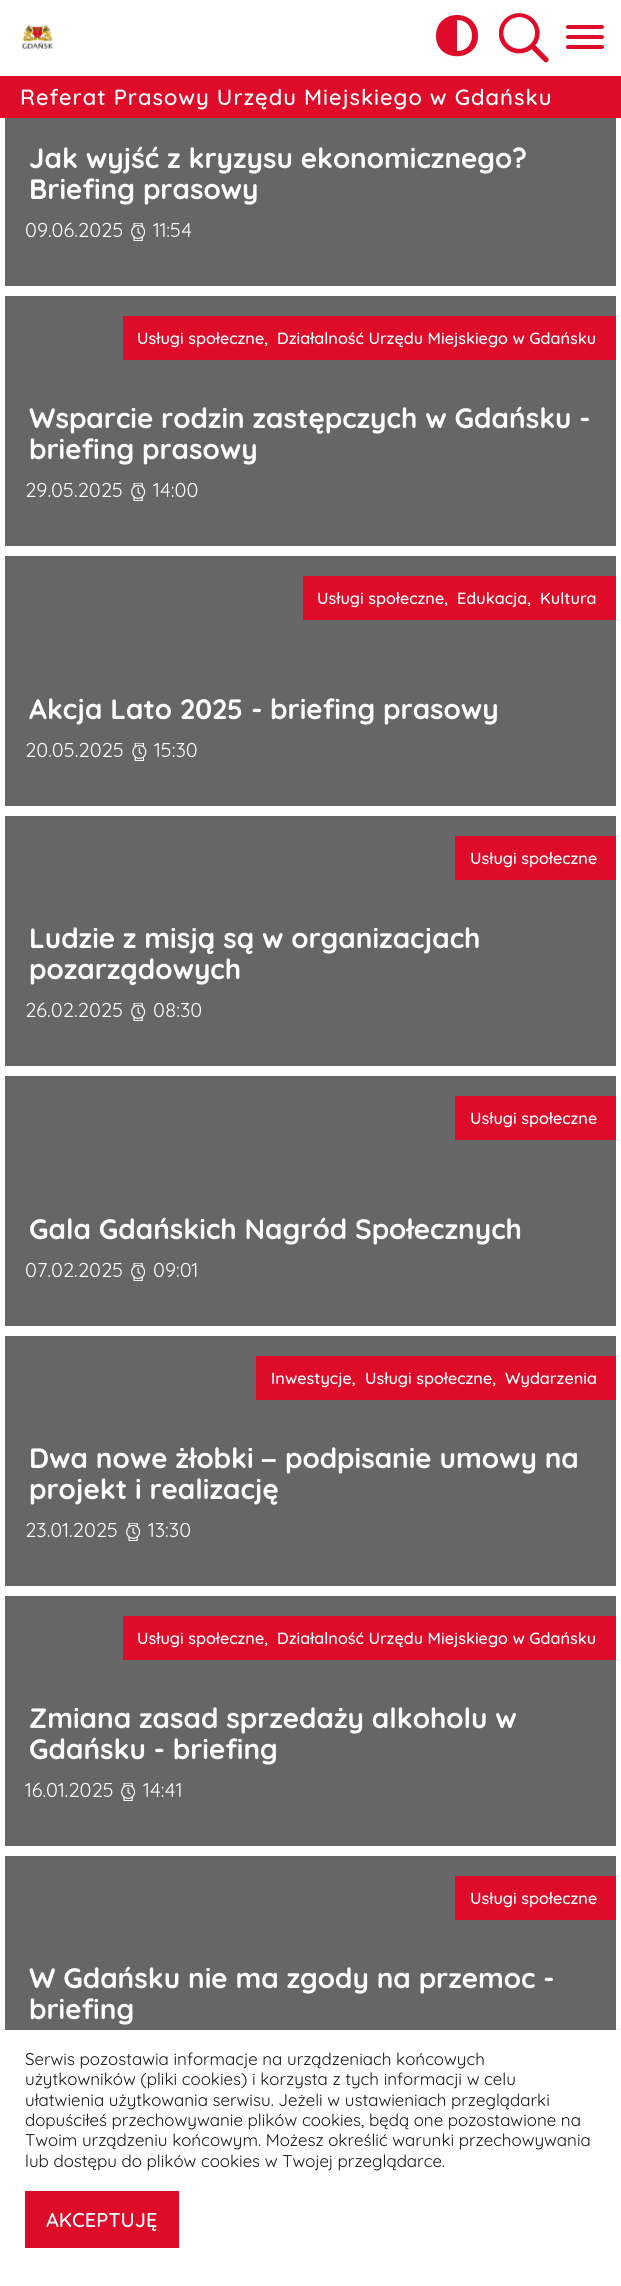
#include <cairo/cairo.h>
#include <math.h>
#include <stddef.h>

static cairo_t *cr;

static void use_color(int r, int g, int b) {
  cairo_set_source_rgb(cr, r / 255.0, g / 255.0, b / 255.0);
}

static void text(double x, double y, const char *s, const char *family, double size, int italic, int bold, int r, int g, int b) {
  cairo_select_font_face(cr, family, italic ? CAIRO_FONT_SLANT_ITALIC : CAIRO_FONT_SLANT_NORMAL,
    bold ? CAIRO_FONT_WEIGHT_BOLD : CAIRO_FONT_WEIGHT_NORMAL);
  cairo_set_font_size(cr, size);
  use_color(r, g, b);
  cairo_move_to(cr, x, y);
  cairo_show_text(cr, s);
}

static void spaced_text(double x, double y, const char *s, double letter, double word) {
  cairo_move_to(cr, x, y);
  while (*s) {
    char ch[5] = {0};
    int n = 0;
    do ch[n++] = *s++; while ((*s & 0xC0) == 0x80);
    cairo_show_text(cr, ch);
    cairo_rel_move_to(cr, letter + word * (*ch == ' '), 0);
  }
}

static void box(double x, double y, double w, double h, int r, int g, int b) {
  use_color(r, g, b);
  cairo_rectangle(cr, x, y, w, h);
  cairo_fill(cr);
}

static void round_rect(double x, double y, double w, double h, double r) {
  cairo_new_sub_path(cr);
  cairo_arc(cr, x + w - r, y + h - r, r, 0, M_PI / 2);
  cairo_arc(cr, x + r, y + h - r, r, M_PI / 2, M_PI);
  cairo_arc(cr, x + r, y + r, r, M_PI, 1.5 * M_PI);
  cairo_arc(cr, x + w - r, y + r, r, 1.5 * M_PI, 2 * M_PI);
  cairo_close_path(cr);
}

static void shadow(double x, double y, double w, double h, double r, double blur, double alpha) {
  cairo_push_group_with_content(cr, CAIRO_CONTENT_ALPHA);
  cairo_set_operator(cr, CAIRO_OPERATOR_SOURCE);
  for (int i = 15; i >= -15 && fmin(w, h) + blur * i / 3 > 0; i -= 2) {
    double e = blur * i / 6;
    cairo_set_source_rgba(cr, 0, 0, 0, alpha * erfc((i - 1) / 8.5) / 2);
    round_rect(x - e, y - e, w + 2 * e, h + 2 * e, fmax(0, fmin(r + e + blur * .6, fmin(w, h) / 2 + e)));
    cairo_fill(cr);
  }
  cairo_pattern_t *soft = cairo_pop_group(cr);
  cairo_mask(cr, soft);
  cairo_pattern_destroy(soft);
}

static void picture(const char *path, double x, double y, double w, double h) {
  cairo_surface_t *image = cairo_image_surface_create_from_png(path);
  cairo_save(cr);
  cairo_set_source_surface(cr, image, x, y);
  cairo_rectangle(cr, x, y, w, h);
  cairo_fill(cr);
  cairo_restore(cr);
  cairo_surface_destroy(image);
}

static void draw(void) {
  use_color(255, 255, 255);
  cairo_paint(cr);
  picture("img_01.png", 22, 24, 32, 25);
  use_color(222, 11, 41);
  cairo_new_path(cr);
  cairo_move_to(cr, 436, 36);
  cairo_curve_to(cr, 436, 63, 478, 63, 478, 36);
  cairo_curve_to(cr, 478, 8, 436, 8, 436, 36);
  cairo_close_path(cr);
  cairo_move_to(cr, 457, 51);
  cairo_line_to(cr, 457, 20);
  cairo_curve_to(cr, 477, 20, 477, 51, 457, 51);
  cairo_close_path(cr);
  cairo_fill(cr);
  picture("img_02.png", 499, 13, 50, 50);
  round_rect(566, 25, 38, 4, 2);
  cairo_fill(cr);
  round_rect(566, 35, 38, 4, 2);
  cairo_fill(cr);
  round_rect(566, 45, 38, 4, 2);
  cairo_fill(cr);
  box(0, 76, 621, 42, 222, 11, 41);
  box(5, 118, 611, 168, 102, 102, 102);
  picture("img_03.png", 131, 223, 15, 18);
  box(5, 296, 611, 250, 102, 102, 102);
  box(123, 316, 493, 44, 222, 11, 41);
  picture("img_03.png", 131, 483, 15, 18);
  box(5, 556, 611, 250, 102, 102, 102);
  box(303, 576, 313, 44, 222, 11, 41);
  picture("img_04.png", 132, 743, 15, 18);
  box(5, 816, 611, 250, 102, 102, 102);
  box(455, 836, 161, 44, 222, 11, 41);
  picture("img_03.png", 131, 1003, 15, 18);
  box(5, 1076, 611, 250, 102, 102, 102);
  box(455, 1096, 161, 44, 222, 11, 41);
  picture("img_03.png", 131, 1263, 15, 18);
  box(5, 1336, 611, 250, 102, 102, 102);
  box(256, 1356, 360, 44, 222, 11, 41);
  picture("img_03.png", 126, 1523, 15, 18);
  box(5, 1596, 611, 250, 102, 102, 102);
  box(123, 1616, 493, 44, 222, 11, 41);
  picture("img_03.png", 121, 1783, 15, 18);
  box(5, 1856, 611, 174, 102, 102, 102);
  box(455, 1876, 161, 44, 222, 11, 41);
  use_color(0, 0, 0);
  shadow(0, 2030, 621, 256, 0, 1, 0.2);
  box(0, 2030, 621, 256, 255, 255, 255);
  box(25, 2191, 154, 57, 222, 11, 41);
  cairo_select_font_face(cr, "Quicksand Medium", CAIRO_FONT_SLANT_NORMAL, CAIRO_FONT_WEIGHT_NORMAL);
  cairo_set_font_size(cr, 22);
  use_color(254, 254, 254);
  spaced_text(20, 105, "Referat Prasowy Urzędu Miejskiego w Gdańsku", 1, 0);
  text(29, 168, "Jak wyjść z kryzysu ekonomicznego?", "Quicksand", 28, 0, 1, 254, 254, 254);
  text(29, 199, "Briefing prasowy", "Quicksand", 28, 0, 1, 254, 254, 254);
  text(25, 237, "09.06.2025", "Quicksand", 20, 0, 0, 254, 254, 254);
  text(153, 237, "11:54", "Quicksand", 20, 0, 0, 254, 254, 254);
  text(137, 344, "Usługi społeczne,", "Quicksand Medium", 16.25, 0, 0, 254, 254, 254);
  text(277, 344, "Działalność Urzędu Miejskiego w Gdańsku", "Quicksand Medium", 16.25, 0, 0, 254, 254, 254);
  text(29, 428, "Wsparcie rodzin zastępczych w Gdańsku -", "Quicksand", 28, 0, 1, 254, 254, 254);
  text(29, 459, "briefing prasowy", "Quicksand", 28, 0, 1, 254, 254, 254);
  text(25, 497, "29.05.2025", "Quicksand", 20, 0, 0, 254, 254, 254);
  text(153, 497, "14:00", "Quicksand", 20, 0, 0, 254, 254, 254);
  text(317, 604, "Usługi społeczne,", "Quicksand Medium", 16.25, 0, 0, 254, 254, 254);
  text(457, 604, "Edukacja,", "Quicksand Medium", 16.25, 0, 0, 254, 254, 254);
  text(540, 604, "Kultura", "Quicksand Medium", 16.25, 0, 0, 254, 254, 254);
  text(29, 719, "Akcja Lato 2025 - briefing prasowy", "Quicksand", 28, 0, 1, 254, 254, 254);
  text(25, 757, "20.05.2025", "Quicksand", 20, 0, 0, 254, 254, 254);
  text(154, 757, "15:30", "Quicksand", 20, 0, 0, 254, 254, 254);
  text(470, 864, "Usługi społeczne", "Quicksand Medium", 16.25, 0, 0, 254, 254, 254);
  text(29, 948, "Ludzie z misją są w organizacjach", "Quicksand", 28, 0, 1, 254, 254, 254);
  text(29, 979, "pozarządowych", "Quicksand", 28, 0, 1, 254, 254, 254);
  text(25, 1017, "26.02.2025", "Quicksand", 20, 0, 0, 254, 254, 254);
  text(153, 1017, "08:30", "Quicksand", 20, 0, 0, 254, 254, 254);
  text(470, 1124, "Usługi społeczne", "Quicksand Medium", 16.25, 0, 0, 254, 254, 254);
  text(29, 1239, "Gala Gdańskich Nagród Społecznych", "Quicksand", 28, 0, 1, 254, 254, 254);
  text(25, 1277, "07.02.2025", "Quicksand", 20, 0, 0, 254, 254, 254);
  text(153, 1277, "09:01", "Quicksand", 20, 0, 0, 254, 254, 254);
  text(271, 1384, "Inwestycje,", "Quicksand Medium", 16.25, 0, 0, 254, 254, 254);
  text(365, 1384, "Usługi społeczne,", "Quicksand Medium", 16.25, 0, 0, 254, 254, 254);
  text(505, 1384, "Wydarzenia", "Quicksand Medium", 16.25, 0, 0, 254, 254, 254);
  text(29, 1468, "Dwa nowe żłobki", "Quicksand", 28, 0, 1, 254, 254, 254);
  text(261, 1468, "–", "Liberation Sans", 28, 0, 1, 254, 254, 254);
  text(285, 1468, "podpisanie umowy na", "Quicksand", 28, 0, 1, 254, 254, 254);
  text(29, 1499, "projekt i realizację", "Quicksand", 28, 0, 1, 254, 254, 254);
  text(25, 1537, "23.01.2025", "Quicksand", 20, 0, 0, 254, 254, 254);
  text(148, 1537, "13:30", "Quicksand", 20, 0, 0, 254, 254, 254);
  text(137, 1644, "Usługi społeczne,", "Quicksand Medium", 16.25, 0, 0, 254, 254, 254);
  text(277, 1644, "Działalność Urzędu Miejskiego w Gdańsku", "Quicksand Medium", 16.25, 0, 0, 254, 254, 254);
  text(29, 1728, "Zmiana zasad sprzedaży alkoholu w", "Quicksand", 28, 0, 1, 254, 254, 254);
  text(29, 1759, "Gdańsku - briefing", "Quicksand", 28, 0, 1, 254, 254, 254);
  text(25, 1797, "16.01.2025", "Quicksand", 20, 0, 0, 254, 254, 254);
  text(143, 1797, "14:41", "Quicksand", 20, 0, 0, 254, 254, 254);
  text(470, 1904, "Usługi społeczne", "Quicksand Medium", 16.25, 0, 0, 254, 254, 254);
  text(29, 1988, "W Gdańsku nie ma zgody na przemoc -", "Quicksand", 28, 0, 1, 254, 254, 254);
  text(29, 2019, "briefing", "Quicksand", 28, 0, 1, 254, 254, 254);
  text(25, 2065, "Serwis pozostawia informacje na urządzeniach końcowych", "Quicksand", 17, 0, 0, 24, 21, 18);
  text(25, 2085, "użytkowników (pliki cookies) i korzysta z tych informacji w celu", "Quicksand", 17, 0, 0, 24, 21, 18);
  text(25, 2106, "ułatwienia użytkowania serwisu. Jeżeli w ustawieniach przeglądarki", "Quicksand", 17, 0, 0, 24, 21, 18);
  text(25, 2126, "dopuściłeś przechowywanie plików cookies, będą one pozostawione na", "Quicksand", 17, 0, 0, 24, 21, 18);
  text(25, 2146, "Twoim urządzeniu końcowym. Możesz określić warunki przechowywania", "Quicksand", 17, 0, 0, 24, 21, 18);
  text(25, 2167, "lub dostępu do plików cookies w Twojej przeglądarce.", "Quicksand", 17, 0, 0, 24, 21, 18);
  text(46, 2227, "AKCEPTUJĘ", "Quicksand Medium", 20, 0, 0, 254, 254, 254);
}

int main(void) {
  cairo_surface_t *surface = cairo_image_surface_create(CAIRO_FORMAT_RGB24, 621, 2286);
  cr = cairo_create(surface);
  cairo_font_options_t *options = cairo_font_options_create();
  cairo_font_options_set_hint_metrics(options, CAIRO_HINT_METRICS_OFF);
  cairo_font_options_set_hint_style(options, CAIRO_HINT_STYLE_NONE);
  cairo_set_font_options(cr, options);
  cairo_set_miter_limit(cr, 4);
  draw();
  cairo_surface_write_to_png(surface, "out.png");
  cairo_font_options_destroy(options);
  cairo_destroy(cr);
  cairo_surface_destroy(surface);
  return 0;
}
